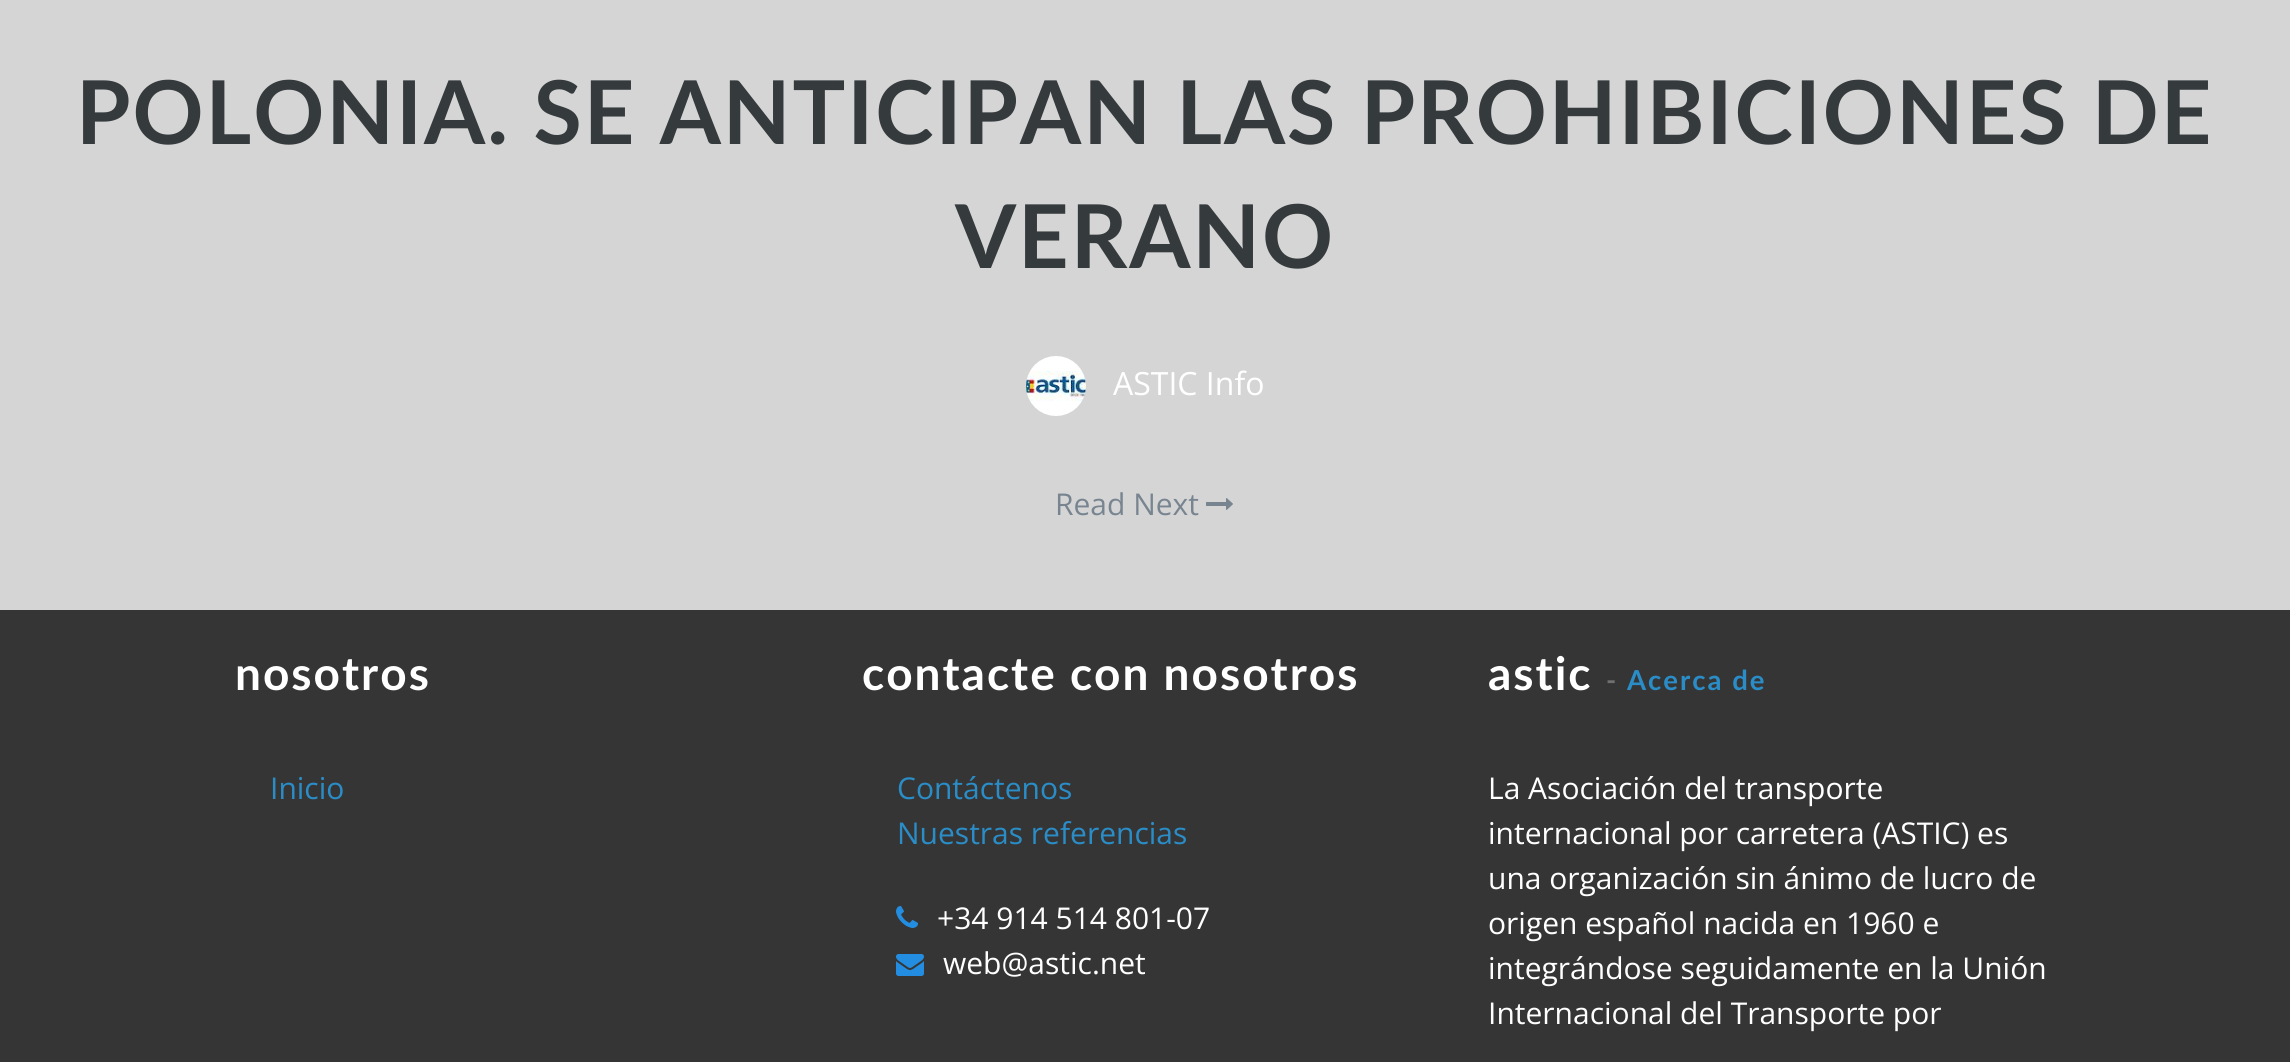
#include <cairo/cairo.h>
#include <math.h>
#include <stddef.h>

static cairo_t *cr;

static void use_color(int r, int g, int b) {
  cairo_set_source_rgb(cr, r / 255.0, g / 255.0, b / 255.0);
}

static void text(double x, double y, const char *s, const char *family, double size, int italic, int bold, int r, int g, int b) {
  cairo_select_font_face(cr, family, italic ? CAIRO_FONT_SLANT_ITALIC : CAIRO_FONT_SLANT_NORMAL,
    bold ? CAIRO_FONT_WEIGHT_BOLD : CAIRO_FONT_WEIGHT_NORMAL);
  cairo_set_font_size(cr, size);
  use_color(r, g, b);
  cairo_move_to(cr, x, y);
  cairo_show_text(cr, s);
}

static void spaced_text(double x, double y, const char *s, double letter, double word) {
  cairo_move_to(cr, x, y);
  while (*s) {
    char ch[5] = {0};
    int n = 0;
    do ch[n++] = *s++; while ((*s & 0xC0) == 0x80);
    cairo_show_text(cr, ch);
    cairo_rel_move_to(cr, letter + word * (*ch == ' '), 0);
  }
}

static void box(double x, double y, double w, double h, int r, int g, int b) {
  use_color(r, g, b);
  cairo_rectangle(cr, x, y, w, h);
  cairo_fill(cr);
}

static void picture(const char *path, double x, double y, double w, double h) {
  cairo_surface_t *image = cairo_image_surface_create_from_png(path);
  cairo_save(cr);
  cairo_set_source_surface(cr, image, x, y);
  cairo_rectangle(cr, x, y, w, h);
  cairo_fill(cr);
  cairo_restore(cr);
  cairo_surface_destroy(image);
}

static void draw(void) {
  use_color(53, 53, 53);
  cairo_paint(cr);
  box(0, 0, 2290, 610, 213, 213, 213);
  picture("img_01.png", 1026, 356, 60, 60);
  picture("img_02.png", 1206, 498, 27, 12);
  picture("img_03.png", 896, 906, 22, 22);
  picture("img_04.png", 896, 954, 28, 22);
  cairo_select_font_face(cr, "Lato", CAIRO_FONT_SLANT_NORMAL, CAIRO_FONT_WEIGHT_BOLD);
  cairo_set_font_size(cr, 88);
  use_color(53, 58, 61);
  spaced_text(76, 144, "POLONIA. SE ANTICIPAN LAS PROHIBICIONES DE", 2, 0);
  spaced_text(955, 268, "VERANO", 2, 0);
  text(1113, 395, "ASTIC Info", "Open Sans", 32, 0, 0, 255, 255, 255);
  text(1055, 515, "Read Next", "Open Sans", 30, 0, 0, 120, 133, 144);
  cairo_select_font_face(cr, "Lato", CAIRO_FONT_SLANT_NORMAL, CAIRO_FONT_WEIGHT_BOLD);
  cairo_set_font_size(cr, 46);
  use_color(255, 255, 255);
  spaced_text(235, 690, "nosotros", 2, 0);
  text(270, 799, "Inicio", "Open Sans", 30, 0, 0, 42, 141, 199);
  cairo_select_font_face(cr, "Lato", CAIRO_FONT_SLANT_NORMAL, CAIRO_FONT_WEIGHT_BOLD);
  cairo_set_font_size(cr, 46);
  use_color(255, 255, 255);
  spaced_text(862, 690, "contacte con nosotros", 2, 0);
  text(897, 799, "Contáctenos", "Open Sans", 30, 0, 0, 42, 141, 199);
  text(897, 844, "Nuestras referencias", "Open Sans", 30, 0, 0, 42, 141, 199);
  text(937, 929, "+34 914 514 801-07", "Open Sans", 30, 0, 0, 255, 255, 255);
  text(943, 974, "web@astic.net", "Open Sans", 30, 0, 0, 255, 255, 255);
  cairo_select_font_face(cr, "Lato", CAIRO_FONT_SLANT_NORMAL, CAIRO_FONT_WEIGHT_BOLD);
  cairo_set_font_size(cr, 46);
  spaced_text(1488, 690, "astic", 2, 0);
  cairo_set_font_size(cr, 27.5);
  use_color(111, 111, 111);
  spaced_text(1606, 690, "-", 2, 0);
  use_color(42, 141, 199);
  spaced_text(1627, 690, "Acerca de", 2, 0);
  text(1488, 799, "La Asociación del transporte", "Open Sans", 30, 0, 0, 255, 255, 255);
  text(1488, 844, "internacional por carretera (ASTIC) es", "Open Sans", 30, 0, 0, 255, 255, 255);
  text(1488, 889, "una organización sin ánimo de lucro de", "Open Sans", 30, 0, 0, 255, 255, 255);
  text(1488, 934, "origen español nacida en 1960 e", "Open Sans", 30, 0, 0, 255, 255, 255);
  text(1488, 979, "integrándose seguidamente en la Unión", "Open Sans", 30, 0, 0, 255, 255, 255);
  text(1488, 1024, "Internacional del Transporte por", "Open Sans", 30, 0, 0, 255, 255, 255);
}

int main(void) {
  cairo_surface_t *surface = cairo_image_surface_create(CAIRO_FORMAT_RGB24, 2290, 1062);
  cr = cairo_create(surface);
  cairo_font_options_t *options = cairo_font_options_create();
  cairo_font_options_set_hint_metrics(options, CAIRO_HINT_METRICS_OFF);
  cairo_font_options_set_hint_style(options, CAIRO_HINT_STYLE_NONE);
  cairo_set_font_options(cr, options);
  cairo_set_miter_limit(cr, 4);
  draw();
  cairo_surface_write_to_png(surface, "out.png");
  cairo_font_options_destroy(options);
  cairo_destroy(cr);
  cairo_surface_destroy(surface);
  return 0;
}
